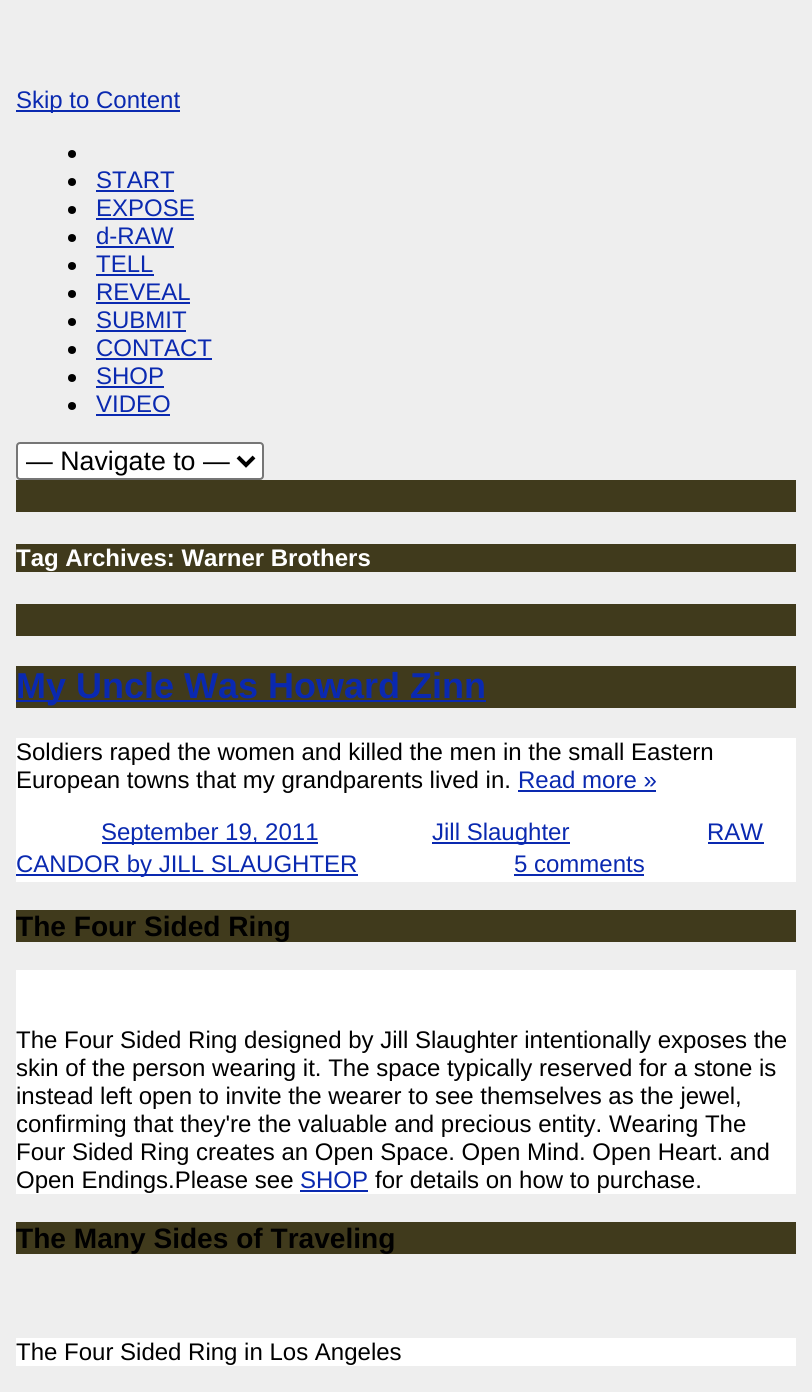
#include <cairo/cairo.h>
#include <math.h>
#include <stddef.h>

static cairo_t *cr;

static void use_color(int r, int g, int b) {
  cairo_set_source_rgb(cr, r / 255.0, g / 255.0, b / 255.0);
}

static void text(double x, double y, const char *s, const char *family, double size, int italic, int bold, int r, int g, int b) {
  cairo_select_font_face(cr, family, italic ? CAIRO_FONT_SLANT_ITALIC : CAIRO_FONT_SLANT_NORMAL,
    bold ? CAIRO_FONT_WEIGHT_BOLD : CAIRO_FONT_WEIGHT_NORMAL);
  cairo_set_font_size(cr, size);
  use_color(r, g, b);
  cairo_move_to(cr, x, y);
  cairo_show_text(cr, s);
}

static void box(double x, double y, double w, double h, int r, int g, int b) {
  use_color(r, g, b);
  cairo_rectangle(cr, x, y, w, h);
  cairo_fill(cr);
}

static void round_rect(double x, double y, double w, double h, double r) {
  cairo_new_sub_path(cr);
  cairo_arc(cr, x + w - r, y + h - r, r, 0, M_PI / 2);
  cairo_arc(cr, x + r, y + h - r, r, M_PI / 2, M_PI);
  cairo_arc(cr, x + r, y + r, r, M_PI, 1.5 * M_PI);
  cairo_arc(cr, x + w - r, y + r, r, 1.5 * M_PI, 2 * M_PI);
  cairo_close_path(cr);
}

static void draw(void) {
  use_color(238, 238, 238);
  cairo_paint(cr);
  box(16, 110, 164, 2, 10, 41, 176);
  use_color(0, 0, 0);
  cairo_arc(cr, 72, 154, 4, 0, 2 * M_PI);
  cairo_fill(cr);
  cairo_arc(cr, 72, 182, 4, 0, 2 * M_PI);
  cairo_fill(cr);
  box(96, 190, 78, 2, 10, 41, 176);
  use_color(0, 0, 0);
  cairo_arc(cr, 72, 210, 4, 0, 2 * M_PI);
  cairo_fill(cr);
  box(96, 218, 98, 2, 10, 41, 176);
  use_color(0, 0, 0);
  cairo_arc(cr, 72, 238, 4, 0, 2 * M_PI);
  cairo_fill(cr);
  box(96, 246, 78, 2, 10, 41, 176);
  use_color(0, 0, 0);
  cairo_arc(cr, 72, 266, 4, 0, 2 * M_PI);
  cairo_fill(cr);
  box(96, 274, 58, 2, 10, 41, 176);
  use_color(0, 0, 0);
  cairo_arc(cr, 72, 294, 4, 0, 2 * M_PI);
  cairo_fill(cr);
  box(96, 302, 94, 2, 10, 41, 176);
  use_color(0, 0, 0);
  cairo_arc(cr, 72, 322, 4, 0, 2 * M_PI);
  cairo_fill(cr);
  box(96, 330, 90, 2, 10, 41, 176);
  use_color(0, 0, 0);
  cairo_arc(cr, 72, 350, 4, 0, 2 * M_PI);
  cairo_fill(cr);
  box(96, 358, 116, 2, 10, 41, 176);
  use_color(0, 0, 0);
  cairo_arc(cr, 72, 378, 4, 0, 2 * M_PI);
  cairo_fill(cr);
  box(96, 386, 68, 2, 10, 41, 176);
  use_color(0, 0, 0);
  cairo_arc(cr, 72, 406, 4, 0, 2 * M_PI);
  cairo_fill(cr);
  box(96, 414, 74, 2, 10, 41, 176);
  use_color(255, 255, 255);
  round_rect(17, 443, 246, 36, 3);
  cairo_fill_preserve(cr);
  use_color(118, 118, 118);
  cairo_stroke(cr);
  cairo_new_path(cr);
  cairo_move_to(cr, 238, 457);
  cairo_line_to(cr, 246, 465);
  cairo_line_to(cr, 254, 457);
  use_color(0, 0, 0);
  cairo_set_line_width(cr, 4);
  cairo_stroke(cr);
  box(16, 480, 780, 32, 64, 58, 28);
  box(16, 544, 780, 28, 64, 58, 28);
  box(16, 604, 780, 32, 64, 58, 28);
  box(16, 666, 780, 42, 64, 58, 28);
  box(16, 700, 470, 2, 10, 41, 176);
  box(16, 738, 780, 144, 255, 255, 255);
  box(518, 790, 138, 2, 10, 41, 176);
  box(102, 842, 216, 2, 10, 41, 176);
  box(432, 842, 138, 2, 10, 41, 176);
  box(708, 842, 56, 2, 10, 41, 176);
  box(16, 874, 342, 2, 10, 41, 176);
  box(514, 874, 130, 2, 10, 41, 176);
  box(16, 910, 780, 32, 64, 58, 28);
  box(16, 970, 780, 224, 255, 255, 255);
  box(300, 1190, 68, 2, 10, 41, 176);
  box(16, 1222, 780, 32, 64, 58, 28);
  box(16, 1338, 780, 28, 255, 255, 255);
  text(16, 108, "Skip to Content", "Liberation Sans", 24, 0, 0, 10, 41, 176);
  text(96, 188, "START", "Liberation Sans", 24, 0, 0, 10, 41, 176);
  text(96, 216, "EXPOSE", "Liberation Sans", 24, 0, 0, 10, 41, 176);
  text(96, 244, "d-RAW", "Liberation Sans", 24, 0, 0, 10, 41, 176);
  text(96, 272, "TELL", "Liberation Sans", 24, 0, 0, 10, 41, 176);
  text(96, 300, "REVEAL", "Liberation Sans", 24, 0, 0, 10, 41, 176);
  text(96, 328, "SUBMIT", "Liberation Sans", 24, 0, 0, 10, 41, 176);
  text(96, 356, "CONTACT", "Liberation Sans", 24, 0, 0, 10, 41, 176);
  text(96, 384, "SHOP", "Liberation Sans", 24, 0, 0, 10, 41, 176);
  text(96, 412, "VIDEO", "Liberation Sans", 24, 0, 0, 10, 41, 176);
  text(26, 470, "— Navigate to —", "Liberation Sans", 26.75, 0, 0, 0, 0, 0);
  text(16, 566, "Tag Archives: Warner Brothers", "Liberation Sans", 24, 0, 1, 255, 255, 255);
  text(16, 698, "My Uncle Was Howard Zinn", "Liberation Sans", 36, 0, 1, 10, 41, 176);
  text(16, 760, "Soldiers raped the women and killed the men in the small Eastern", "Liberation Sans", 24, 0, 0, 0, 0, 0);
  text(16, 788, "European towns that my grandparents lived in.", "Liberation Sans", 24, 0, 0, 0, 0, 0);
  text(518, 788, "Read more »", "Liberation Sans", 24, 0, 0, 10, 41, 176);
  text(101, 840, "September 19, 2011", "Liberation Sans", 24, 0, 0, 10, 41, 176);
  text(432, 840, "Jill Slaughter", "Liberation Sans", 24, 0, 0, 10, 41, 176);
  text(707, 840, "RAW", "Liberation Sans", 24, 0, 0, 10, 41, 176);
  text(16, 872, "CANDOR by JILL SLAUGHTER", "Liberation Sans", 24, 0, 0, 10, 41, 176);
  text(514, 872, "5 comments", "Liberation Sans", 24, 0, 0, 10, 41, 176);
  text(16, 936, "The Four Sided Ring", "Liberation Sans", 28.1, 0, 1, 0, 0, 0);
  text(16, 1048, "The Four Sided Ring designed by Jill Slaughter intentionally exposes the", "Liberation Sans", 24, 0, 0, 0, 0, 0);
  text(16, 1076, "skin of the person wearing it. The space typically reserved for a stone is", "Liberation Sans", 24, 0, 0, 0, 0, 0);
  text(16, 1104, "instead left open to invite the wearer to see themselves as the jewel,", "Liberation Sans", 24, 0, 0, 0, 0, 0);
  text(16, 1132, "confirming that they're the valuable and precious entity. Wearing The", "Liberation Sans", 24, 0, 0, 0, 0, 0);
  text(16, 1160, "Four Sided Ring creates an Open Space. Open Mind. Open Heart. and", "Liberation Sans", 24, 0, 0, 0, 0, 0);
  text(16, 1188, "Open Endings.Please see", "Liberation Sans", 24, 0, 0, 0, 0, 0);
  text(300, 1188, "SHOP", "Liberation Sans", 24, 0, 0, 10, 41, 176);
  text(375, 1188, "for details on how to purchase.", "Liberation Sans", 24, 0, 0, 0, 0, 0);
  text(16, 1248, "The Many Sides of Traveling", "Liberation Sans", 28.1, 0, 1, 0, 0, 0);
  text(16, 1360, "The Four Sided Ring in Los Angeles", "Liberation Sans", 24, 0, 0, 0, 0, 0);
}

int main(void) {
  cairo_surface_t *surface = cairo_image_surface_create(CAIRO_FORMAT_RGB24, 812, 1392);
  cr = cairo_create(surface);
  cairo_font_options_t *options = cairo_font_options_create();
  cairo_font_options_set_hint_metrics(options, CAIRO_HINT_METRICS_OFF);
  cairo_font_options_set_hint_style(options, CAIRO_HINT_STYLE_NONE);
  cairo_set_font_options(cr, options);
  cairo_set_miter_limit(cr, 4);
  draw();
  cairo_surface_write_to_png(surface, "out.png");
  cairo_font_options_destroy(options);
  cairo_destroy(cr);
  cairo_surface_destroy(surface);
  return 0;
}
